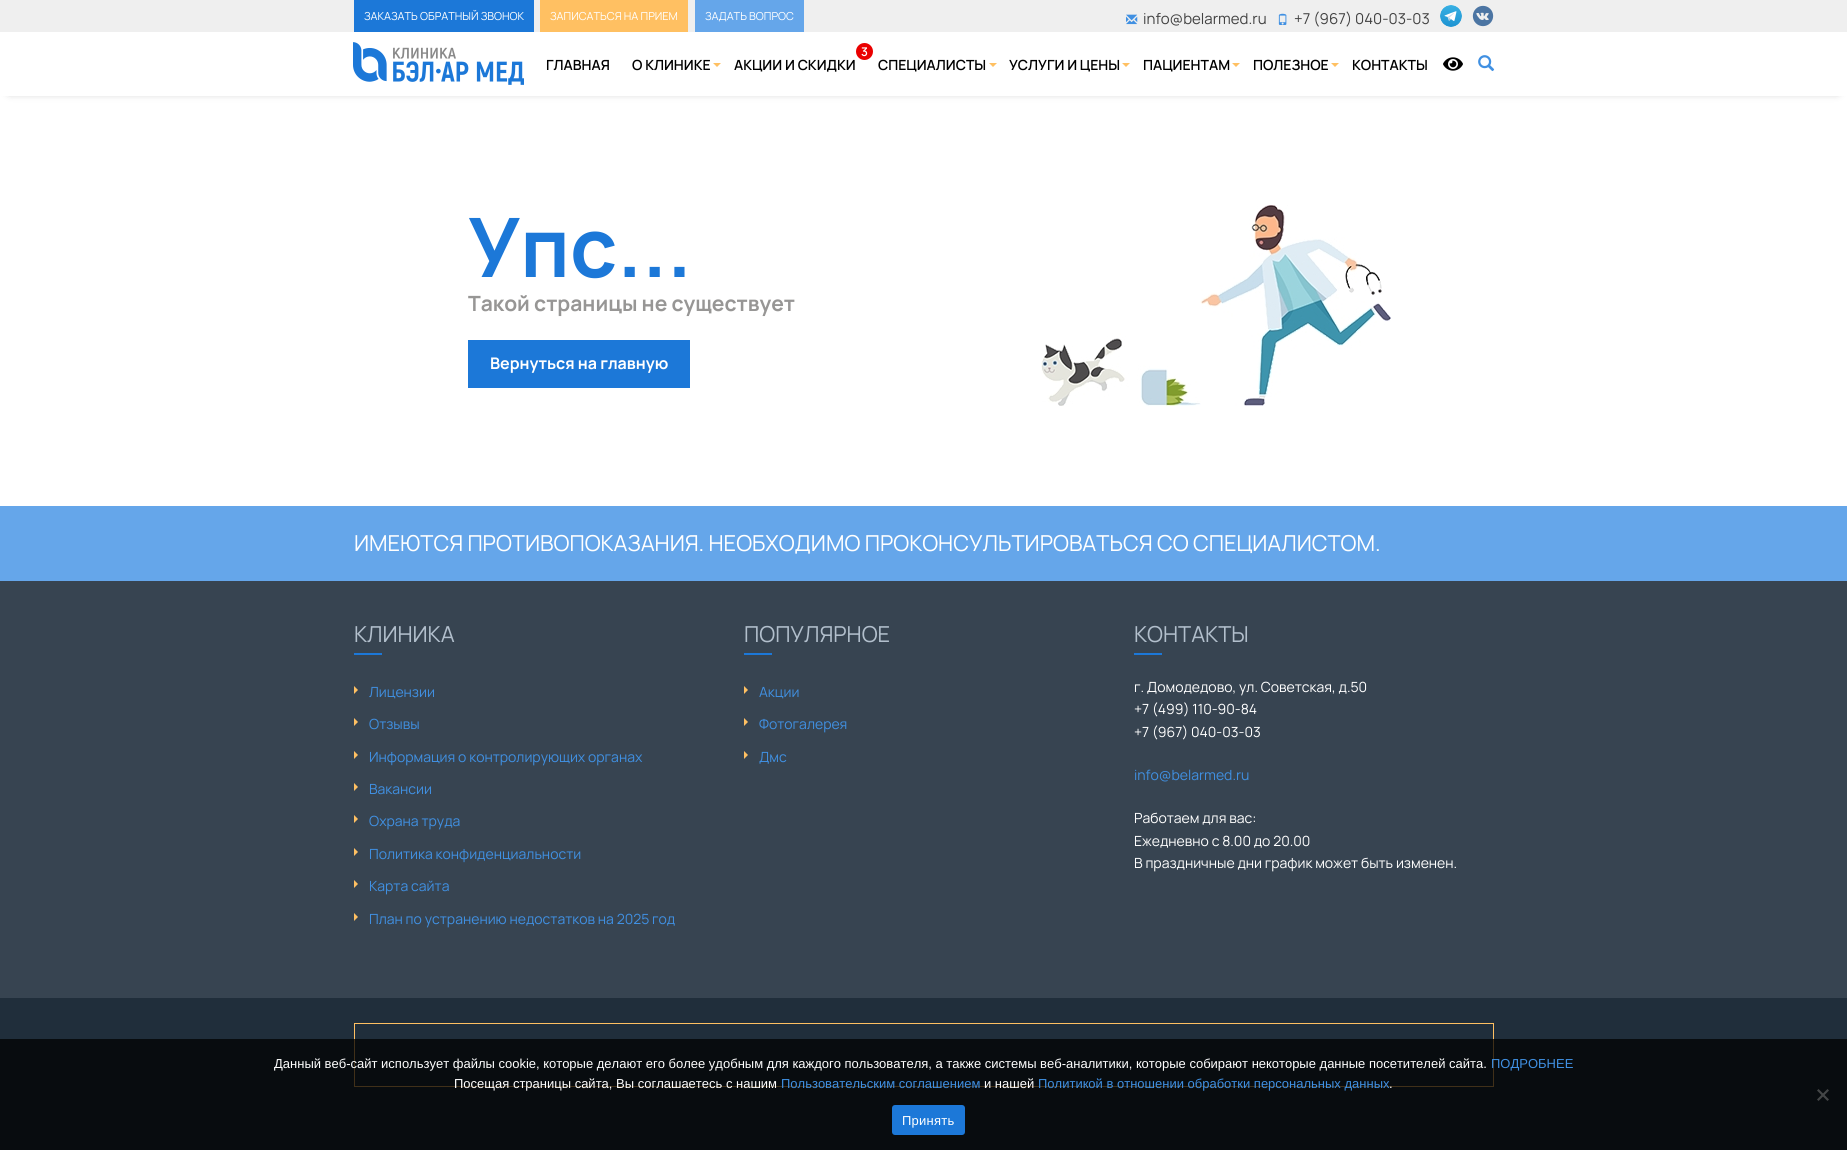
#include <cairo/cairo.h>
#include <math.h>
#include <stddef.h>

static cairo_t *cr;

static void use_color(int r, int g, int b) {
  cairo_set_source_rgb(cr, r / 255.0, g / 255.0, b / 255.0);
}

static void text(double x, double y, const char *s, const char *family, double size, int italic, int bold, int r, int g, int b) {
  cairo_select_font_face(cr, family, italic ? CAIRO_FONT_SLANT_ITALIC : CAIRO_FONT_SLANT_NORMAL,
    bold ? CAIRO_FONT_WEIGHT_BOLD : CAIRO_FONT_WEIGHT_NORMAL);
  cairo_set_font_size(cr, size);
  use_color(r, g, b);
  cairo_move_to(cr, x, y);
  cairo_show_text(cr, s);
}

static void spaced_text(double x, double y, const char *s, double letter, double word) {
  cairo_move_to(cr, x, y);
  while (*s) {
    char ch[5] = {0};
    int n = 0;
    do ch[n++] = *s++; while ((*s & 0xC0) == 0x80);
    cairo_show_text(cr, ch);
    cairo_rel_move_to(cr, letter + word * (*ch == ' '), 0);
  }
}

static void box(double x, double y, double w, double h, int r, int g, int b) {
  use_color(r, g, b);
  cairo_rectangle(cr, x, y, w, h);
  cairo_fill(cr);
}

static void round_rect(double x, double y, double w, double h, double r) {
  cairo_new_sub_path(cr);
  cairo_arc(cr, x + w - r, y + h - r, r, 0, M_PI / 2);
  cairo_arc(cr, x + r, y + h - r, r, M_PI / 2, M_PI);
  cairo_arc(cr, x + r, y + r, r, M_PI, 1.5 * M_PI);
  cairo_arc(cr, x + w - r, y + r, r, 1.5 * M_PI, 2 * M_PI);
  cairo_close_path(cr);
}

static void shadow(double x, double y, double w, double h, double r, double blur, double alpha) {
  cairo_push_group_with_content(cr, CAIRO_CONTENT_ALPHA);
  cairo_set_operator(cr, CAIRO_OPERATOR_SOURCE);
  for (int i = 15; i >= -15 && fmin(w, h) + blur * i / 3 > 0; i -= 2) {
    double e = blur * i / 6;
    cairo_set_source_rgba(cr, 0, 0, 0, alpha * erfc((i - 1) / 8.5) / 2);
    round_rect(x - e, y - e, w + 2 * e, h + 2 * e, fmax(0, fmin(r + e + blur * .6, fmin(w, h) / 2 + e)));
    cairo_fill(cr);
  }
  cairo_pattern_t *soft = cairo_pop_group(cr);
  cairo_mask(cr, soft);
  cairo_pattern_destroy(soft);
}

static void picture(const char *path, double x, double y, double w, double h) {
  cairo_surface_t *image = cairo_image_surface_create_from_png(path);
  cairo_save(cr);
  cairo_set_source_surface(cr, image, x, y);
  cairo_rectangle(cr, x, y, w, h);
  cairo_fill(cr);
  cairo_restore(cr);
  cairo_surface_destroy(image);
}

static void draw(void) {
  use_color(255, 255, 255);
  cairo_paint(cr);
  use_color(0, 0, 0);
  shadow(10, 14, 1827, 76, 0, 5, 0.6);
  box(0, 32, 1847, 64, 255, 255, 255);
  box(0, 0, 1847, 32, 239, 239, 239);
  box(354, 0, 180, 32, 28, 120, 216);
  box(540, 0, 148, 32, 255, 192, 98);
  box(695, 0, 109, 32, 101, 166, 234);
  picture("img_01.png", 1126, 14, 12, 11);
  picture("img_02.png", 1278, 13, 9, 12);
  picture("img_03.png", 1440, 5, 22, 22);
  picture("img_04.png", 1472, 5, 22, 22);
  picture("img_05.png", 353, 42, 171, 43);
  use_color(255, 192, 98);
  cairo_new_path(cr);
  cairo_move_to(cr, 713, 63);
  cairo_line_to(cr, 721, 63);
  cairo_line_to(cr, 717, 67);
  cairo_close_path(cr);
  cairo_fill(cr);
  use_color(234, 0, 0);
  cairo_arc(cr, 864.5, 51.5, 8.5, 0, 2 * M_PI);
  cairo_fill(cr);
  use_color(255, 192, 98);
  cairo_new_path(cr);
  cairo_move_to(cr, 989, 63);
  cairo_line_to(cr, 997, 63);
  cairo_line_to(cr, 993, 67);
  cairo_close_path(cr);
  cairo_fill(cr);
  cairo_new_path(cr);
  cairo_move_to(cr, 1122, 63);
  cairo_line_to(cr, 1130, 63);
  cairo_line_to(cr, 1126, 67);
  cairo_close_path(cr);
  cairo_fill(cr);
  cairo_new_path(cr);
  cairo_move_to(cr, 1232, 63);
  cairo_line_to(cr, 1240, 63);
  cairo_line_to(cr, 1236, 67);
  cairo_close_path(cr);
  cairo_fill(cr);
  cairo_new_path(cr);
  cairo_move_to(cr, 1331, 63);
  cairo_line_to(cr, 1339, 63);
  cairo_line_to(cr, 1335, 67);
  cairo_close_path(cr);
  cairo_fill(cr);
  picture("img_06.png", 1443, 57, 20, 14);
  picture("img_07.png", 1478, 55, 17, 17);
  box(468, 340, 222, 48, 28, 120, 216);
  picture("img_08.png", 1041, 205, 350, 201);
  box(0, 506, 1847, 75, 101, 166, 234);
  box(0, 581, 1847, 417, 55, 68, 81);
  box(354, 653, 28, 2, 28, 120, 216);
  use_color(255, 192, 98);
  cairo_new_path(cr);
  cairo_move_to(cr, 354, 694);
  cairo_line_to(cr, 354, 686);
  cairo_line_to(cr, 358, 690);
  cairo_close_path(cr);
  cairo_fill(cr);
  cairo_new_path(cr);
  cairo_move_to(cr, 354, 726);
  cairo_line_to(cr, 354, 718);
  cairo_line_to(cr, 358, 722);
  cairo_close_path(cr);
  cairo_fill(cr);
  cairo_new_path(cr);
  cairo_move_to(cr, 354, 759);
  cairo_line_to(cr, 354, 751);
  cairo_line_to(cr, 358, 755);
  cairo_close_path(cr);
  cairo_fill(cr);
  cairo_new_path(cr);
  cairo_move_to(cr, 354, 791);
  cairo_line_to(cr, 354, 783);
  cairo_line_to(cr, 358, 787);
  cairo_close_path(cr);
  cairo_fill(cr);
  cairo_new_path(cr);
  cairo_move_to(cr, 354, 823);
  cairo_line_to(cr, 354, 815);
  cairo_line_to(cr, 358, 819);
  cairo_close_path(cr);
  cairo_fill(cr);
  cairo_new_path(cr);
  cairo_move_to(cr, 354, 856);
  cairo_line_to(cr, 354, 848);
  cairo_line_to(cr, 358, 852);
  cairo_close_path(cr);
  cairo_fill(cr);
  cairo_new_path(cr);
  cairo_move_to(cr, 354, 888);
  cairo_line_to(cr, 354, 880);
  cairo_line_to(cr, 358, 884);
  cairo_close_path(cr);
  cairo_fill(cr);
  cairo_new_path(cr);
  cairo_move_to(cr, 354, 921);
  cairo_line_to(cr, 354, 913);
  cairo_line_to(cr, 358, 917);
  cairo_close_path(cr);
  cairo_fill(cr);
  box(744, 653, 28, 2, 28, 120, 216);
  use_color(255, 192, 98);
  cairo_new_path(cr);
  cairo_move_to(cr, 744, 694);
  cairo_line_to(cr, 744, 686);
  cairo_line_to(cr, 748, 690);
  cairo_close_path(cr);
  cairo_fill(cr);
  cairo_new_path(cr);
  cairo_move_to(cr, 744, 726);
  cairo_line_to(cr, 744, 718);
  cairo_line_to(cr, 748, 722);
  cairo_close_path(cr);
  cairo_fill(cr);
  cairo_new_path(cr);
  cairo_move_to(cr, 744, 759);
  cairo_line_to(cr, 744, 751);
  cairo_line_to(cr, 748, 755);
  cairo_close_path(cr);
  cairo_fill(cr);
  box(1134, 653, 28, 2, 28, 120, 216);
  box(0, 998, 1847, 152, 32, 46, 59);
  cairo_rectangle(cr, 354.5, 1023.5, 1139, 63);
  use_color(255, 192, 98);
  cairo_set_line_width(cr, 1);
  cairo_stroke(cr);
  cairo_set_source_rgba(cr, 0, 0, 0, 0.75);
  cairo_rectangle(cr, 0, 1039, 1847, 111);
  cairo_fill(cr);
  use_color(68, 70, 71);
  cairo_new_path(cr);
  cairo_move_to(cr, 1827.5, 1089);
  cairo_line_to(cr, 1829, 1090.5);
  cairo_line_to(cr, 1818.5, 1101);
  cairo_line_to(cr, 1817, 1099.5);
  cairo_close_path(cr);
  cairo_fill(cr);
  cairo_new_path(cr);
  cairo_move_to(cr, 1817, 1090.5);
  cairo_line_to(cr, 1818.5, 1089);
  cairo_line_to(cr, 1829, 1099.5);
  cairo_line_to(cr, 1827.5, 1101);
  cairo_close_path(cr);
  cairo_fill(cr);
  use_color(28, 120, 216);
  round_rect(892, 1105, 73, 30, 3);
  cairo_fill(cr);
  text(364, 20, "ЗАКАЗАТЬ ОБРАТНЫЙ ЗВОНОК", "Manrope", 11, 0, 0, 255, 255, 255);
  text(550, 20, "ЗАПИСАТЬСЯ НА ПРИЕМ", "Manrope", 11, 0, 0, 255, 255, 255);
  text(705, 20, "ЗАДАТЬ ВОПРОС", "Manrope", 11, 0, 0, 255, 255, 255);
  text(1143, 24, "info@belarmed.ru", "Manrope", 15, 0, 0, 66, 66, 66);
  text(1294, 24, "+7 (967) 040-03-03", "Manrope", 15, 0, 0, 66, 66, 66);
  text(546, 70, "ГЛАВНАЯ", "Manrope SemiBold", 14, 0, 0, 0, 0, 0);
  text(632, 70, "О КЛИНИКЕ", "Manrope SemiBold", 14, 0, 0, 0, 0, 0);
  text(861, 56, "3", "Manrope SemiBold", 12, 0, 0, 255, 255, 255);
  text(734, 70, "АКЦИИ И СКИДКИ", "Manrope SemiBold", 14, 0, 0, 0, 0, 0);
  text(878, 70, "СПЕЦИАЛИСТЫ", "Manrope SemiBold", 14, 0, 0, 0, 0, 0);
  text(1009, 70, "УСЛУГИ И ЦЕНЫ", "Manrope SemiBold", 14, 0, 0, 0, 0, 0);
  text(1143, 70, "ПАЦИЕНТАМ", "Manrope SemiBold", 14, 0, 0, 0, 0, 0);
  text(1253, 70, "ПОЛЕЗНОЕ", "Manrope SemiBold", 14, 0, 0, 0, 0, 0);
  text(1352, 70, "КОНТАКТЫ", "Manrope SemiBold", 14, 0, 0, 0, 0, 0);
  text(468, 277, "Упс...", "Manrope", 82, 0, 1, 28, 120, 216);
  text(468, 311, "Такой страницы не существует", "Manrope", 21, 0, 1, 151, 150, 149);
  text(490, 369, "Вернуться на главную", "Manrope", 16, 0, 1, 255, 255, 255);
  text(354, 551, "ИМЕЮТСЯ ПРОТИВОПОКАЗАНИЯ. НЕОБХОДИМО ПРОКОНСУЛЬТИРОВАТЬСЯ СО СПЕЦИАЛИСТОМ.", "Manrope", 22, 0, 0, 255, 255, 255);
  text(354, 642, "КЛИНИКА", "Manrope", 22, 0, 0, 178, 191, 204);
  text(369, 697, "Лицензии", "Manrope", 14, 0, 0, 64, 144, 226);
  text(369, 729, "Отзывы", "Manrope", 14, 0, 0, 64, 144, 226);
  text(369, 762, "Информация о контролирующих органах", "Manrope", 14, 0, 0, 64, 144, 226);
  text(369, 794, "Вакансии", "Manrope", 14, 0, 0, 64, 144, 226);
  text(369, 826, "Охрана труда", "Manrope", 14, 0, 0, 64, 144, 226);
  text(369, 859, "Политика конфиденциальности", "Manrope", 14, 0, 0, 64, 144, 226);
  text(369, 891, "Карта сайта", "Manrope", 14, 0, 0, 64, 144, 226);
  text(369, 924, "План по устранению недостатков на 2025 год", "Manrope", 14, 0, 0, 64, 144, 226);
  text(744, 642, "ПОПУЛЯРНОЕ", "Manrope", 22, 0, 0, 178, 191, 204);
  text(759, 697, "Акции", "Manrope", 14, 0, 0, 64, 144, 226);
  text(759, 729, "Фотогалерея", "Manrope", 14, 0, 0, 64, 144, 226);
  text(759, 762, "Дмс", "Manrope", 14, 0, 0, 64, 144, 226);
  text(1134, 642, "КОНТАКТЫ", "Manrope", 22, 0, 0, 178, 191, 204);
  text(1134, 692, "г. Домодедово, ул. Советская, д.50", "Manrope", 14, 0, 0, 255, 255, 255);
  text(1134, 714, "+7 (499) 110-90-84", "Manrope", 14, 0, 0, 255, 255, 255);
  text(1134, 737, "+7 (967) 040-03-03", "Manrope", 14, 0, 0, 255, 255, 255);
  text(1134, 780, "info@belarmed.ru", "Manrope", 14, 0, 0, 64, 144, 226);
  text(1134, 823, "Работаем для вас:", "Manrope", 14, 0, 0, 255, 255, 255);
  text(1134, 846, "Ежедневно с 8.00 до 20.00", "Manrope", 14, 0, 0, 255, 255, 255);
  text(1134, 868, "В праздничные дни график может быть изменен.", "Manrope", 14, 0, 0, 255, 255, 255);
  text(274, 1068, "Данный веб-сайт использует файлы cookie, которые делают его более удобным для каждого пользователя, а также системы веб-аналитики, которые собирают некоторые данные посетителей сайта.", "Liberation Sans", 13, 0, 0, 255, 255, 255);
  text(1491, 1068, "ПОДРОБНЕЕ", "Liberation Sans", 13, 0, 0, 64, 144, 226);
  text(454, 1088, "Посещая страницы сайта, Вы соглашаетесь с нашим", "Liberation Sans", 13, 0, 0, 255, 255, 255);
  text(781, 1088, "Пользовательским соглашением", "Liberation Sans", 13, 0, 0, 64, 144, 226);
  text(984, 1088, "и нашей", "Liberation Sans", 13, 0, 0, 255, 255, 255);
  text(1038, 1088, "Политикой в отношении обработки персональных данных", "Liberation Sans", 13, 0, 0, 64, 144, 226);
  text(1389, 1088, ".", "Liberation Sans", 13, 0, 0, 255, 255, 255);
  spaced_text(902, 1125, "Принять", 0.25, 0);
}

int main(void) {
  cairo_surface_t *surface = cairo_image_surface_create(CAIRO_FORMAT_RGB24, 1847, 1150);
  cr = cairo_create(surface);
  cairo_font_options_t *options = cairo_font_options_create();
  cairo_font_options_set_hint_metrics(options, CAIRO_HINT_METRICS_OFF);
  cairo_font_options_set_hint_style(options, CAIRO_HINT_STYLE_NONE);
  cairo_set_font_options(cr, options);
  cairo_set_miter_limit(cr, 4);
  draw();
  cairo_surface_write_to_png(surface, "out.png");
  cairo_font_options_destroy(options);
  cairo_destroy(cr);
  cairo_surface_destroy(surface);
  return 0;
}
